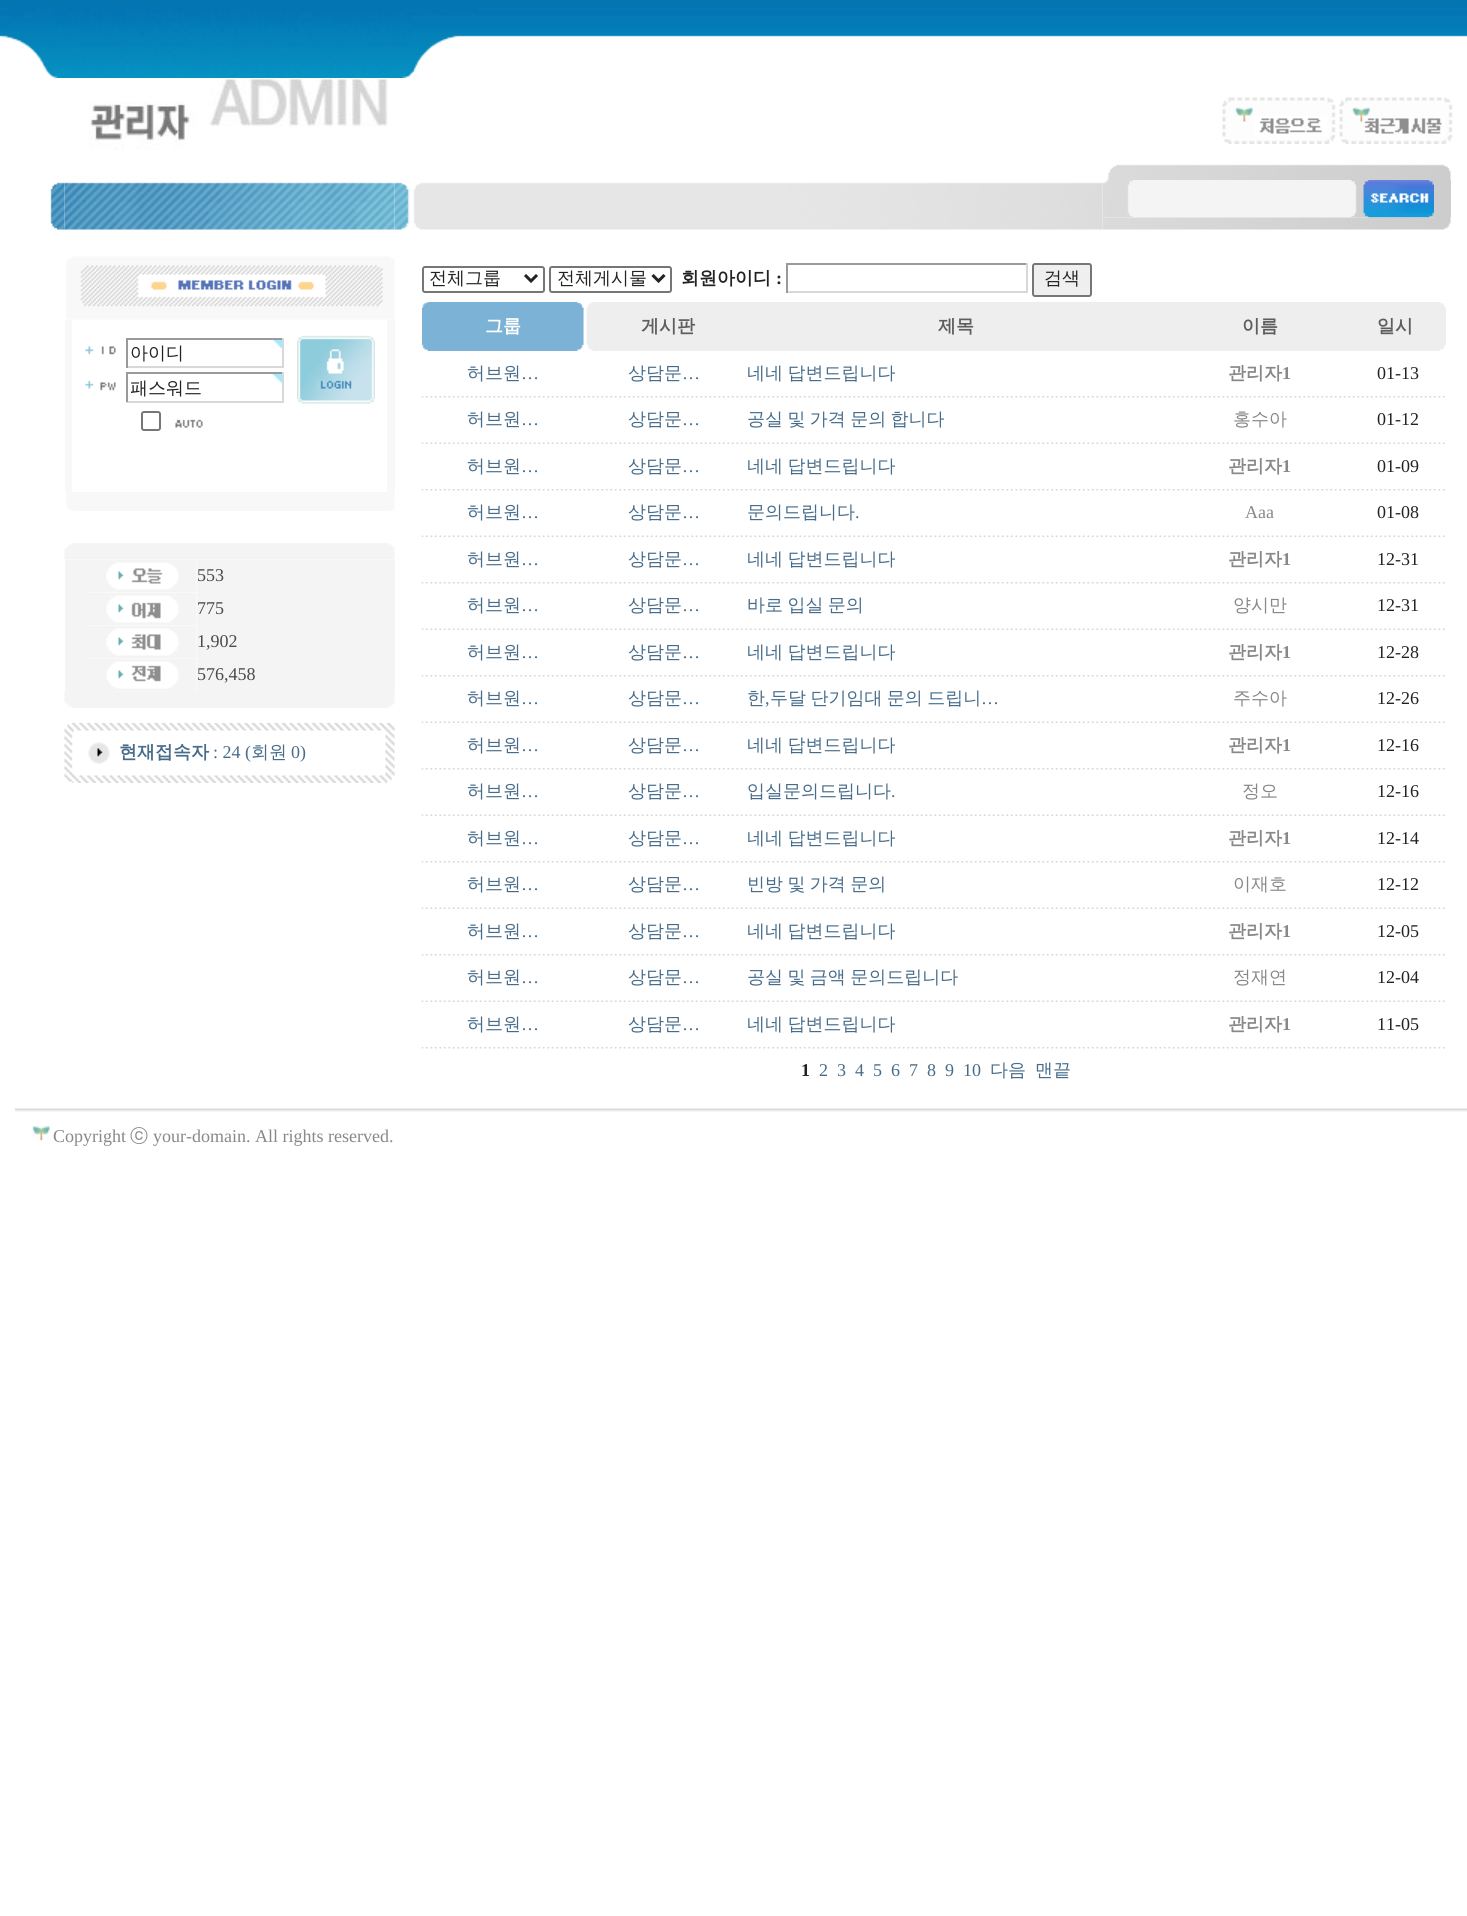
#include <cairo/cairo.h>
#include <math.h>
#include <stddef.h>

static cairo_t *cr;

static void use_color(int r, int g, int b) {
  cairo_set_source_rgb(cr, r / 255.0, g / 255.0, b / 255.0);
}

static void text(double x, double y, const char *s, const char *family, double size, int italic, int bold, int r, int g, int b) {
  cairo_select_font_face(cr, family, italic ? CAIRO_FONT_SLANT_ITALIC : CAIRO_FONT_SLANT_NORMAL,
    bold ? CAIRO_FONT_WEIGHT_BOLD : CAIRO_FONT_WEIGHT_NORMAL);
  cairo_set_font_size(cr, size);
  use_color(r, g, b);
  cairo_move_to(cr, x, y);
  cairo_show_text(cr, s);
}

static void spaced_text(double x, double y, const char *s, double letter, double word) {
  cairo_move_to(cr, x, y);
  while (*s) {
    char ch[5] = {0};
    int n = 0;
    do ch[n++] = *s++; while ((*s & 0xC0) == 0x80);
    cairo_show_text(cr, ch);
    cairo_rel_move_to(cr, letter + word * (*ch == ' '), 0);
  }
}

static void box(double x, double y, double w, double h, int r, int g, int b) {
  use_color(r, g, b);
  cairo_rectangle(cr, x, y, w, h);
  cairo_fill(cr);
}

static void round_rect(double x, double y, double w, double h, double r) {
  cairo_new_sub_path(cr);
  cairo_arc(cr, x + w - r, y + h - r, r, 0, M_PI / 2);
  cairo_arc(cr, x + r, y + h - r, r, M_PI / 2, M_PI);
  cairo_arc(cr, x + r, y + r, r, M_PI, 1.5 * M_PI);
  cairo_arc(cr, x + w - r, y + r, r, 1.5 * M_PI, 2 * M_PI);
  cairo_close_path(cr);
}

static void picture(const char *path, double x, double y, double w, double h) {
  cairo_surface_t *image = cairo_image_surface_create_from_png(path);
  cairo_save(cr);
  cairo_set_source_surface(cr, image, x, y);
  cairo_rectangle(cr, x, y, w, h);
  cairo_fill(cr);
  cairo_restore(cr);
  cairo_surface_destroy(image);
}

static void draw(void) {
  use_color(255, 255, 255);
  cairo_paint(cr);
  picture("img_01.png", 0, 0, 1467, 8);
  picture("img_02.png", 0, 8, 1467, 70);
  picture("img_03.png", 89, 78, 299, 72);
  picture("img_04.png", 1222, 97, 114, 47);
  picture("img_05.png", 1339, 97, 114, 47);
  picture("img_06.png", 1107, 164, 344, 16);
  picture("img_07.png", 50, 182, 15, 48);
  picture("img_09.png", 394, 182, 709, 48);
  picture("img_08.png", 64, 182, 331, 48);
  picture("img_10.png", 1102, 180, 38, 38);
  box(1140, 180, 204, 38, 244, 244, 244);
  picture("img_11.png", 1344, 180, 18, 38);
  picture("img_12.png", 1362, 180, 72, 38);
  box(1434, 180, 17, 38, 205, 205, 205);
  picture("img_13.png", 1102, 217, 349, 13);
  picture("img_14.png", 66, 256, 329, 64);
  box(65, 320, 7, 172, 248, 248, 248);
  picture("img_15.png", 85, 346, 31, 9);
  picture("img_16.png", 273, 340, 9, 8);
  box(126, 338, 158, 2, 154, 154, 154);
  box(282, 338, 2, 30, 216, 216, 216);
  box(126, 366, 158, 2, 216, 216, 216);
  box(126, 338, 2, 30, 154, 154, 154);
  picture("img_17.png", 85, 380, 31, 11);
  picture("img_18.png", 273, 374, 9, 9);
  box(126, 372, 158, 2, 154, 154, 154);
  box(282, 372, 2, 30, 216, 216, 216);
  box(126, 401, 158, 2, 216, 216, 216);
  box(126, 372, 2, 30, 154, 154, 154);
  picture("img_19.png", 297, 335, 78, 69);
  round_rect(142, 412, 18, 18, 2);
  use_color(118, 118, 118);
  cairo_stroke(cr);
  picture("img_20.png", 175, 419, 28, 9);
  box(387, 320, 8, 172, 248, 248, 248);
  picture("img_21.png", 66, 492, 329, 19);
  picture("img_22.png", 64, 543, 331, 17);
  box(65, 560, 22, 132, 244, 244, 244);
  picture("img_23.png", 87, 560, 110, 33);
  box(197, 560, 198, 132, 244, 244, 244);
  picture("img_24.png", 87, 593, 110, 33);
  picture("img_25.png", 87, 626, 110, 33);
  picture("img_26.png", 87, 659, 110, 33);
  picture("img_27.png", 64, 691, 331, 17);
  picture("img_28.png", 64, 723, 331, 60);
  picture("img_29.png", 88, 742, 22, 22);
  round_rect(423, 267, 121, 25, 2);
  use_color(118, 118, 118);
  cairo_stroke(cr);
  cairo_new_path(cr);
  cairo_move_to(cr, 525, 275);
  cairo_line_to(cr, 531, 281);
  cairo_line_to(cr, 537, 275);
  use_color(34, 34, 34);
  cairo_set_line_width(cr, 3);
  cairo_stroke(cr);
  round_rect(550, 267, 121, 25, 2);
  use_color(118, 118, 118);
  cairo_set_line_width(cr, 2);
  cairo_stroke(cr);
  cairo_new_path(cr);
  cairo_move_to(cr, 652.5, 275);
  cairo_line_to(cr, 658.5, 281);
  cairo_line_to(cr, 664.5, 275);
  use_color(34, 34, 34);
  cairo_set_line_width(cr, 3);
  cairo_stroke(cr);
  box(786, 263, 242, 2, 154, 154, 154);
  box(1026, 263, 2, 30, 216, 216, 216);
  box(786, 291, 242, 2, 216, 216, 216);
  box(786, 263, 2, 30, 154, 154, 154);
  use_color(239, 239, 239);
  round_rect(1033, 264, 58, 32, 2);
  cairo_fill_preserve(cr);
  use_color(118, 118, 118);
  cairo_set_line_width(cr, 2);
  cairo_stroke(cr);
  box(422, 302, 162, 49, 123, 178, 214);
  picture("img_30.png", 422, 302, 6, 49);
  picture("img_31.png", 577, 302, 8, 49);
  box(586, 302, 860, 49, 238, 238, 238);
  picture("img_32.png", 585, 302, 8, 49);
  picture("img_33.png", 1440, 302, 6, 49);
  picture("img_34.png", 421, 396, 1024, 2);
  picture("img_35.png", 421, 442, 1024, 2);
  picture("img_34.png", 421, 489, 1024, 2);
  picture("img_35.png", 421, 535, 1024, 2);
  picture("img_34.png", 421, 582, 1024, 2);
  picture("img_35.png", 421, 628, 1024, 2);
  picture("img_34.png", 421, 675, 1024, 2);
  picture("img_35.png", 421, 721, 1024, 2);
  picture("img_34.png", 421, 768, 1024, 2);
  picture("img_35.png", 421, 814, 1024, 2);
  picture("img_34.png", 421, 861, 1024, 2);
  picture("img_35.png", 421, 907, 1024, 2);
  picture("img_34.png", 421, 954, 1024, 2);
  picture("img_35.png", 421, 1000, 1024, 2);
  picture("img_34.png", 421, 1047, 1024, 2);
  picture("img_36.png", 15, 1108, 1452, 4);
  picture("img_37.png", 32, 1126, 18, 15);
  text(130, 359, "아이디", "WenQuanYi Zen Hei Medium", 18, 0, 0, 34, 34, 34);
  cairo_save(cr);
  cairo_rectangle(cr, 131, 377, 148, 24);
  cairo_clip(cr);
  text(130, 394, "패스워드", "WenQuanYi Zen Hei Medium", 18, 0, 0, 34, 34, 34);
  cairo_restore(cr);
  text(197, 581, "553", "Liberation Serif", 18, 0, 0, 75, 75, 75);
  text(197, 614, "775", "Liberation Serif", 18, 0, 0, 75, 75, 75);
  text(197, 647, "1,902", "Liberation Serif", 18, 0, 0, 75, 75, 75);
  text(197, 680, "576,458", "Liberation Serif", 18, 0, 0, 75, 75, 75);
  text(119, 758, "현재접속자", "WenQuanYi Zen Hei", 18, 0, 1, 70, 108, 138);
  text(213, 758, ": 24 (", "Liberation Serif", 18, 0, 0, 70, 108, 138);
  text(251, 758, "회원", "WenQuanYi Zen Hei Medium", 18, 0, 0, 70, 108, 138);
  text(291, 758, "0)", "Liberation Serif", 18, 0, 0, 70, 108, 138);
  text(429, 284, "전체그룹", "WenQuanYi Zen Hei Medium", 18, 0, 0, 34, 34, 34);
  text(557, 284, "전체게시물", "WenQuanYi Zen Hei Medium", 18, 0, 0, 34, 34, 34);
  text(681, 284, "회원아이디", "WenQuanYi Zen Hei", 18, 0, 1, 34, 34, 34);
  text(776, 284, ":", "Liberation Serif", 18, 0, 1, 34, 34, 34);
  text(1044, 284, "검색", "WenQuanYi Zen Hei Medium", 18, 0, 0, 34, 34, 34);
  text(485, 332, "그룹", "WenQuanYi Zen Hei", 18, 0, 1, 255, 255, 255);
  text(641, 332, "게시판", "WenQuanYi Zen Hei", 18, 0, 1, 94, 94, 94);
  text(938, 332, "제목", "WenQuanYi Zen Hei", 18, 0, 1, 94, 94, 94);
  text(1242, 332, "이름", "WenQuanYi Zen Hei", 18, 0, 1, 94, 94, 94);
  text(1377, 332, "일시", "WenQuanYi Zen Hei", 18, 0, 1, 94, 94, 94);
  text(467, 379, "허브원", "WenQuanYi Zen Hei Medium", 18, 0, 0, 70, 108, 138);
  text(521, 379, "…", "Liberation Serif", 18, 0, 0, 70, 108, 138);
  text(628, 379, "상담문", "WenQuanYi Zen Hei Medium", 18, 0, 0, 70, 108, 138);
  text(682, 379, "…", "Liberation Serif", 18, 0, 0, 70, 108, 138);
  cairo_select_font_face(cr, "WenQuanYi Zen Hei Medium", CAIRO_FONT_SLANT_NORMAL, CAIRO_FONT_WEIGHT_NORMAL);
  spaced_text(747, 379, "네네 답변드립니다", 0, -1);
  text(1228, 379, "관리자", "WenQuanYi Zen Hei", 18, 0, 1, 136, 136, 136);
  text(1282, 379, "1", "Liberation Serif", 18, 0, 1, 136, 136, 136);
  text(1377, 379, "01-13", "Liberation Serif", 18, 0, 0, 34, 34, 34);
  text(467, 425, "허브원", "WenQuanYi Zen Hei Medium", 18, 0, 0, 70, 108, 138);
  text(521, 425, "…", "Liberation Serif", 18, 0, 0, 70, 108, 138);
  text(628, 425, "상담문", "WenQuanYi Zen Hei Medium", 18, 0, 0, 70, 108, 138);
  text(682, 425, "…", "Liberation Serif", 18, 0, 0, 70, 108, 138);
  cairo_select_font_face(cr, "WenQuanYi Zen Hei Medium", CAIRO_FONT_SLANT_NORMAL, CAIRO_FONT_WEIGHT_NORMAL);
  spaced_text(747, 425, "공실 및 가격 문의 합니다", 0, -1);
  text(1233, 425, "홍수아", "WenQuanYi Zen Hei Medium", 18, 0, 0, 136, 136, 136);
  text(1377, 425, "01-12", "Liberation Serif", 18, 0, 0, 34, 34, 34);
  text(467, 472, "허브원", "WenQuanYi Zen Hei Medium", 18, 0, 0, 70, 108, 138);
  text(521, 472, "…", "Liberation Serif", 18, 0, 0, 70, 108, 138);
  text(628, 472, "상담문", "WenQuanYi Zen Hei Medium", 18, 0, 0, 70, 108, 138);
  text(682, 472, "…", "Liberation Serif", 18, 0, 0, 70, 108, 138);
  cairo_select_font_face(cr, "WenQuanYi Zen Hei Medium", CAIRO_FONT_SLANT_NORMAL, CAIRO_FONT_WEIGHT_NORMAL);
  spaced_text(747, 472, "네네 답변드립니다", 0, -1);
  text(1228, 472, "관리자", "WenQuanYi Zen Hei", 18, 0, 1, 136, 136, 136);
  text(1282, 472, "1", "Liberation Serif", 18, 0, 1, 136, 136, 136);
  text(1377, 472, "01-09", "Liberation Serif", 18, 0, 0, 34, 34, 34);
  text(467, 518, "허브원", "WenQuanYi Zen Hei Medium", 18, 0, 0, 70, 108, 138);
  text(521, 518, "…", "Liberation Serif", 18, 0, 0, 70, 108, 138);
  text(628, 518, "상담문", "WenQuanYi Zen Hei Medium", 18, 0, 0, 70, 108, 138);
  text(682, 518, "…", "Liberation Serif", 18, 0, 0, 70, 108, 138);
  text(747, 518, "문의드립니다", "WenQuanYi Zen Hei Medium", 18, 0, 0, 70, 108, 138);
  text(855, 518, ".", "Liberation Serif", 18, 0, 0, 70, 108, 138);
  text(1245, 518, "Aaa", "Liberation Serif", 18, 0, 0, 136, 136, 136);
  text(1377, 518, "01-08", "Liberation Serif", 18, 0, 0, 34, 34, 34);
  text(467, 565, "허브원", "WenQuanYi Zen Hei Medium", 18, 0, 0, 70, 108, 138);
  text(521, 565, "…", "Liberation Serif", 18, 0, 0, 70, 108, 138);
  text(628, 565, "상담문", "WenQuanYi Zen Hei Medium", 18, 0, 0, 70, 108, 138);
  text(682, 565, "…", "Liberation Serif", 18, 0, 0, 70, 108, 138);
  cairo_select_font_face(cr, "WenQuanYi Zen Hei Medium", CAIRO_FONT_SLANT_NORMAL, CAIRO_FONT_WEIGHT_NORMAL);
  spaced_text(747, 565, "네네 답변드립니다", 0, -1);
  text(1228, 565, "관리자", "WenQuanYi Zen Hei", 18, 0, 1, 136, 136, 136);
  text(1282, 565, "1", "Liberation Serif", 18, 0, 1, 136, 136, 136);
  text(1377, 565, "12-31", "Liberation Serif", 18, 0, 0, 34, 34, 34);
  text(467, 611, "허브원", "WenQuanYi Zen Hei Medium", 18, 0, 0, 70, 108, 138);
  text(521, 611, "…", "Liberation Serif", 18, 0, 0, 70, 108, 138);
  text(628, 611, "상담문", "WenQuanYi Zen Hei Medium", 18, 0, 0, 70, 108, 138);
  text(682, 611, "…", "Liberation Serif", 18, 0, 0, 70, 108, 138);
  cairo_select_font_face(cr, "WenQuanYi Zen Hei Medium", CAIRO_FONT_SLANT_NORMAL, CAIRO_FONT_WEIGHT_NORMAL);
  spaced_text(747, 611, "바로 입실 문의", 0, -1);
  text(1233, 611, "양시만", "WenQuanYi Zen Hei Medium", 18, 0, 0, 136, 136, 136);
  text(1377, 611, "12-31", "Liberation Serif", 18, 0, 0, 34, 34, 34);
  text(467, 658, "허브원", "WenQuanYi Zen Hei Medium", 18, 0, 0, 70, 108, 138);
  text(521, 658, "…", "Liberation Serif", 18, 0, 0, 70, 108, 138);
  text(628, 658, "상담문", "WenQuanYi Zen Hei Medium", 18, 0, 0, 70, 108, 138);
  text(682, 658, "…", "Liberation Serif", 18, 0, 0, 70, 108, 138);
  cairo_select_font_face(cr, "WenQuanYi Zen Hei Medium", CAIRO_FONT_SLANT_NORMAL, CAIRO_FONT_WEIGHT_NORMAL);
  spaced_text(747, 658, "네네 답변드립니다", 0, -1);
  text(1228, 658, "관리자", "WenQuanYi Zen Hei", 18, 0, 1, 136, 136, 136);
  text(1282, 658, "1", "Liberation Serif", 18, 0, 1, 136, 136, 136);
  text(1377, 658, "12-28", "Liberation Serif", 18, 0, 0, 34, 34, 34);
  text(467, 704, "허브원", "WenQuanYi Zen Hei Medium", 18, 0, 0, 70, 108, 138);
  text(521, 704, "…", "Liberation Serif", 18, 0, 0, 70, 108, 138);
  text(628, 704, "상담문", "WenQuanYi Zen Hei Medium", 18, 0, 0, 70, 108, 138);
  text(682, 704, "…", "Liberation Serif", 18, 0, 0, 70, 108, 138);
  text(747, 704, "한", "WenQuanYi Zen Hei Medium", 18, 0, 0, 70, 108, 138);
  text(765, 704, ",", "Liberation Serif", 18, 0, 0, 70, 108, 138);
  cairo_select_font_face(cr, "WenQuanYi Zen Hei Medium", CAIRO_FONT_SLANT_NORMAL, CAIRO_FONT_WEIGHT_NORMAL);
  spaced_text(770, 704, "두달 단기임대 문의 드립니", 0, -1);
  text(981, 704, "…", "Liberation Serif", 18, 0, 0, 70, 108, 138);
  text(1233, 704, "주수아", "WenQuanYi Zen Hei Medium", 18, 0, 0, 136, 136, 136);
  text(1377, 704, "12-26", "Liberation Serif", 18, 0, 0, 34, 34, 34);
  text(467, 751, "허브원", "WenQuanYi Zen Hei Medium", 18, 0, 0, 70, 108, 138);
  text(521, 751, "…", "Liberation Serif", 18, 0, 0, 70, 108, 138);
  text(628, 751, "상담문", "WenQuanYi Zen Hei Medium", 18, 0, 0, 70, 108, 138);
  text(682, 751, "…", "Liberation Serif", 18, 0, 0, 70, 108, 138);
  cairo_select_font_face(cr, "WenQuanYi Zen Hei Medium", CAIRO_FONT_SLANT_NORMAL, CAIRO_FONT_WEIGHT_NORMAL);
  spaced_text(747, 751, "네네 답변드립니다", 0, -1);
  text(1228, 751, "관리자", "WenQuanYi Zen Hei", 18, 0, 1, 136, 136, 136);
  text(1282, 751, "1", "Liberation Serif", 18, 0, 1, 136, 136, 136);
  text(1377, 751, "12-16", "Liberation Serif", 18, 0, 0, 34, 34, 34);
  text(467, 797, "허브원", "WenQuanYi Zen Hei Medium", 18, 0, 0, 70, 108, 138);
  text(521, 797, "…", "Liberation Serif", 18, 0, 0, 70, 108, 138);
  text(628, 797, "상담문", "WenQuanYi Zen Hei Medium", 18, 0, 0, 70, 108, 138);
  text(682, 797, "…", "Liberation Serif", 18, 0, 0, 70, 108, 138);
  text(747, 797, "입실문의드립니다", "WenQuanYi Zen Hei Medium", 18, 0, 0, 70, 108, 138);
  text(891, 797, ".", "Liberation Serif", 18, 0, 0, 70, 108, 138);
  text(1242, 797, "정오", "WenQuanYi Zen Hei Medium", 18, 0, 0, 136, 136, 136);
  text(1377, 797, "12-16", "Liberation Serif", 18, 0, 0, 34, 34, 34);
  text(467, 844, "허브원", "WenQuanYi Zen Hei Medium", 18, 0, 0, 70, 108, 138);
  text(521, 844, "…", "Liberation Serif", 18, 0, 0, 70, 108, 138);
  text(628, 844, "상담문", "WenQuanYi Zen Hei Medium", 18, 0, 0, 70, 108, 138);
  text(682, 844, "…", "Liberation Serif", 18, 0, 0, 70, 108, 138);
  cairo_select_font_face(cr, "WenQuanYi Zen Hei Medium", CAIRO_FONT_SLANT_NORMAL, CAIRO_FONT_WEIGHT_NORMAL);
  spaced_text(747, 844, "네네 답변드립니다", 0, -1);
  text(1228, 844, "관리자", "WenQuanYi Zen Hei", 18, 0, 1, 136, 136, 136);
  text(1282, 844, "1", "Liberation Serif", 18, 0, 1, 136, 136, 136);
  text(1377, 844, "12-14", "Liberation Serif", 18, 0, 0, 34, 34, 34);
  text(467, 890, "허브원", "WenQuanYi Zen Hei Medium", 18, 0, 0, 70, 108, 138);
  text(521, 890, "…", "Liberation Serif", 18, 0, 0, 70, 108, 138);
  text(628, 890, "상담문", "WenQuanYi Zen Hei Medium", 18, 0, 0, 70, 108, 138);
  text(682, 890, "…", "Liberation Serif", 18, 0, 0, 70, 108, 138);
  cairo_select_font_face(cr, "WenQuanYi Zen Hei Medium", CAIRO_FONT_SLANT_NORMAL, CAIRO_FONT_WEIGHT_NORMAL);
  spaced_text(747, 890, "빈방 및 가격 문의", 0, -1);
  text(1233, 890, "이재호", "WenQuanYi Zen Hei Medium", 18, 0, 0, 136, 136, 136);
  text(1377, 890, "12-12", "Liberation Serif", 18, 0, 0, 34, 34, 34);
  text(467, 937, "허브원", "WenQuanYi Zen Hei Medium", 18, 0, 0, 70, 108, 138);
  text(521, 937, "…", "Liberation Serif", 18, 0, 0, 70, 108, 138);
  text(628, 937, "상담문", "WenQuanYi Zen Hei Medium", 18, 0, 0, 70, 108, 138);
  text(682, 937, "…", "Liberation Serif", 18, 0, 0, 70, 108, 138);
  cairo_select_font_face(cr, "WenQuanYi Zen Hei Medium", CAIRO_FONT_SLANT_NORMAL, CAIRO_FONT_WEIGHT_NORMAL);
  spaced_text(747, 937, "네네 답변드립니다", 0, -1);
  text(1228, 937, "관리자", "WenQuanYi Zen Hei", 18, 0, 1, 136, 136, 136);
  text(1282, 937, "1", "Liberation Serif", 18, 0, 1, 136, 136, 136);
  text(1377, 937, "12-05", "Liberation Serif", 18, 0, 0, 34, 34, 34);
  text(467, 983, "허브원", "WenQuanYi Zen Hei Medium", 18, 0, 0, 70, 108, 138);
  text(521, 983, "…", "Liberation Serif", 18, 0, 0, 70, 108, 138);
  text(628, 983, "상담문", "WenQuanYi Zen Hei Medium", 18, 0, 0, 70, 108, 138);
  text(682, 983, "…", "Liberation Serif", 18, 0, 0, 70, 108, 138);
  cairo_select_font_face(cr, "WenQuanYi Zen Hei Medium", CAIRO_FONT_SLANT_NORMAL, CAIRO_FONT_WEIGHT_NORMAL);
  spaced_text(747, 983, "공실 및 금액 문의드립니다", 0, -1);
  text(1233, 983, "정재연", "WenQuanYi Zen Hei Medium", 18, 0, 0, 136, 136, 136);
  text(1377, 983, "12-04", "Liberation Serif", 18, 0, 0, 34, 34, 34);
  text(467, 1030, "허브원", "WenQuanYi Zen Hei Medium", 18, 0, 0, 70, 108, 138);
  text(521, 1030, "…", "Liberation Serif", 18, 0, 0, 70, 108, 138);
  text(628, 1030, "상담문", "WenQuanYi Zen Hei Medium", 18, 0, 0, 70, 108, 138);
  text(682, 1030, "…", "Liberation Serif", 18, 0, 0, 70, 108, 138);
  cairo_select_font_face(cr, "WenQuanYi Zen Hei Medium", CAIRO_FONT_SLANT_NORMAL, CAIRO_FONT_WEIGHT_NORMAL);
  spaced_text(747, 1030, "네네 답변드립니다", 0, -1);
  text(1228, 1030, "관리자", "WenQuanYi Zen Hei", 18, 0, 1, 136, 136, 136);
  text(1282, 1030, "1", "Liberation Serif", 18, 0, 1, 136, 136, 136);
  text(1377, 1030, "11-05", "Liberation Serif", 18, 0, 0, 34, 34, 34);
  text(801, 1076, "1", "Liberation Serif", 18, 0, 1, 34, 34, 34);
  text(819, 1076, "2", "Liberation Serif", 18, 0, 0, 70, 108, 138);
  text(837, 1076, "3", "Liberation Serif", 18, 0, 0, 70, 108, 138);
  text(855, 1076, "4", "Liberation Serif", 18, 0, 0, 70, 108, 138);
  text(873, 1076, "5", "Liberation Serif", 18, 0, 0, 70, 108, 138);
  text(891, 1076, "6", "Liberation Serif", 18, 0, 0, 70, 108, 138);
  text(909, 1076, "7", "Liberation Serif", 18, 0, 0, 70, 108, 138);
  text(927, 1076, "8", "Liberation Serif", 18, 0, 0, 70, 108, 138);
  text(945, 1076, "9", "Liberation Serif", 18, 0, 0, 70, 108, 138);
  text(963, 1076, "10", "Liberation Serif", 18, 0, 0, 70, 108, 138);
  text(990, 1076, "다음", "WenQuanYi Zen Hei Medium", 18, 0, 0, 70, 108, 138);
  text(1035, 1076, "맨끝", "WenQuanYi Zen Hei Medium", 18, 0, 0, 70, 108, 138);
  text(53, 1142, "Copyright", "Liberation Serif", 18, 0, 0, 136, 136, 136);
  text(130, 1142, "ⓒ", "WenQuanYi Zen Hei Medium", 18, 0, 0, 136, 136, 136);
  text(153, 1142, "your-domain. All rights reserved.", "Liberation Serif", 18, 0, 0, 136, 136, 136);
}

int main(void) {
  cairo_surface_t *surface = cairo_image_surface_create(CAIRO_FORMAT_RGB24, 1467, 1916);
  cr = cairo_create(surface);
  cairo_font_options_t *options = cairo_font_options_create();
  cairo_font_options_set_hint_metrics(options, CAIRO_HINT_METRICS_OFF);
  cairo_font_options_set_hint_style(options, CAIRO_HINT_STYLE_NONE);
  cairo_set_font_options(cr, options);
  cairo_set_miter_limit(cr, 4);
  draw();
  cairo_surface_write_to_png(surface, "out.png");
  cairo_font_options_destroy(options);
  cairo_destroy(cr);
  cairo_surface_destroy(surface);
  return 0;
}
